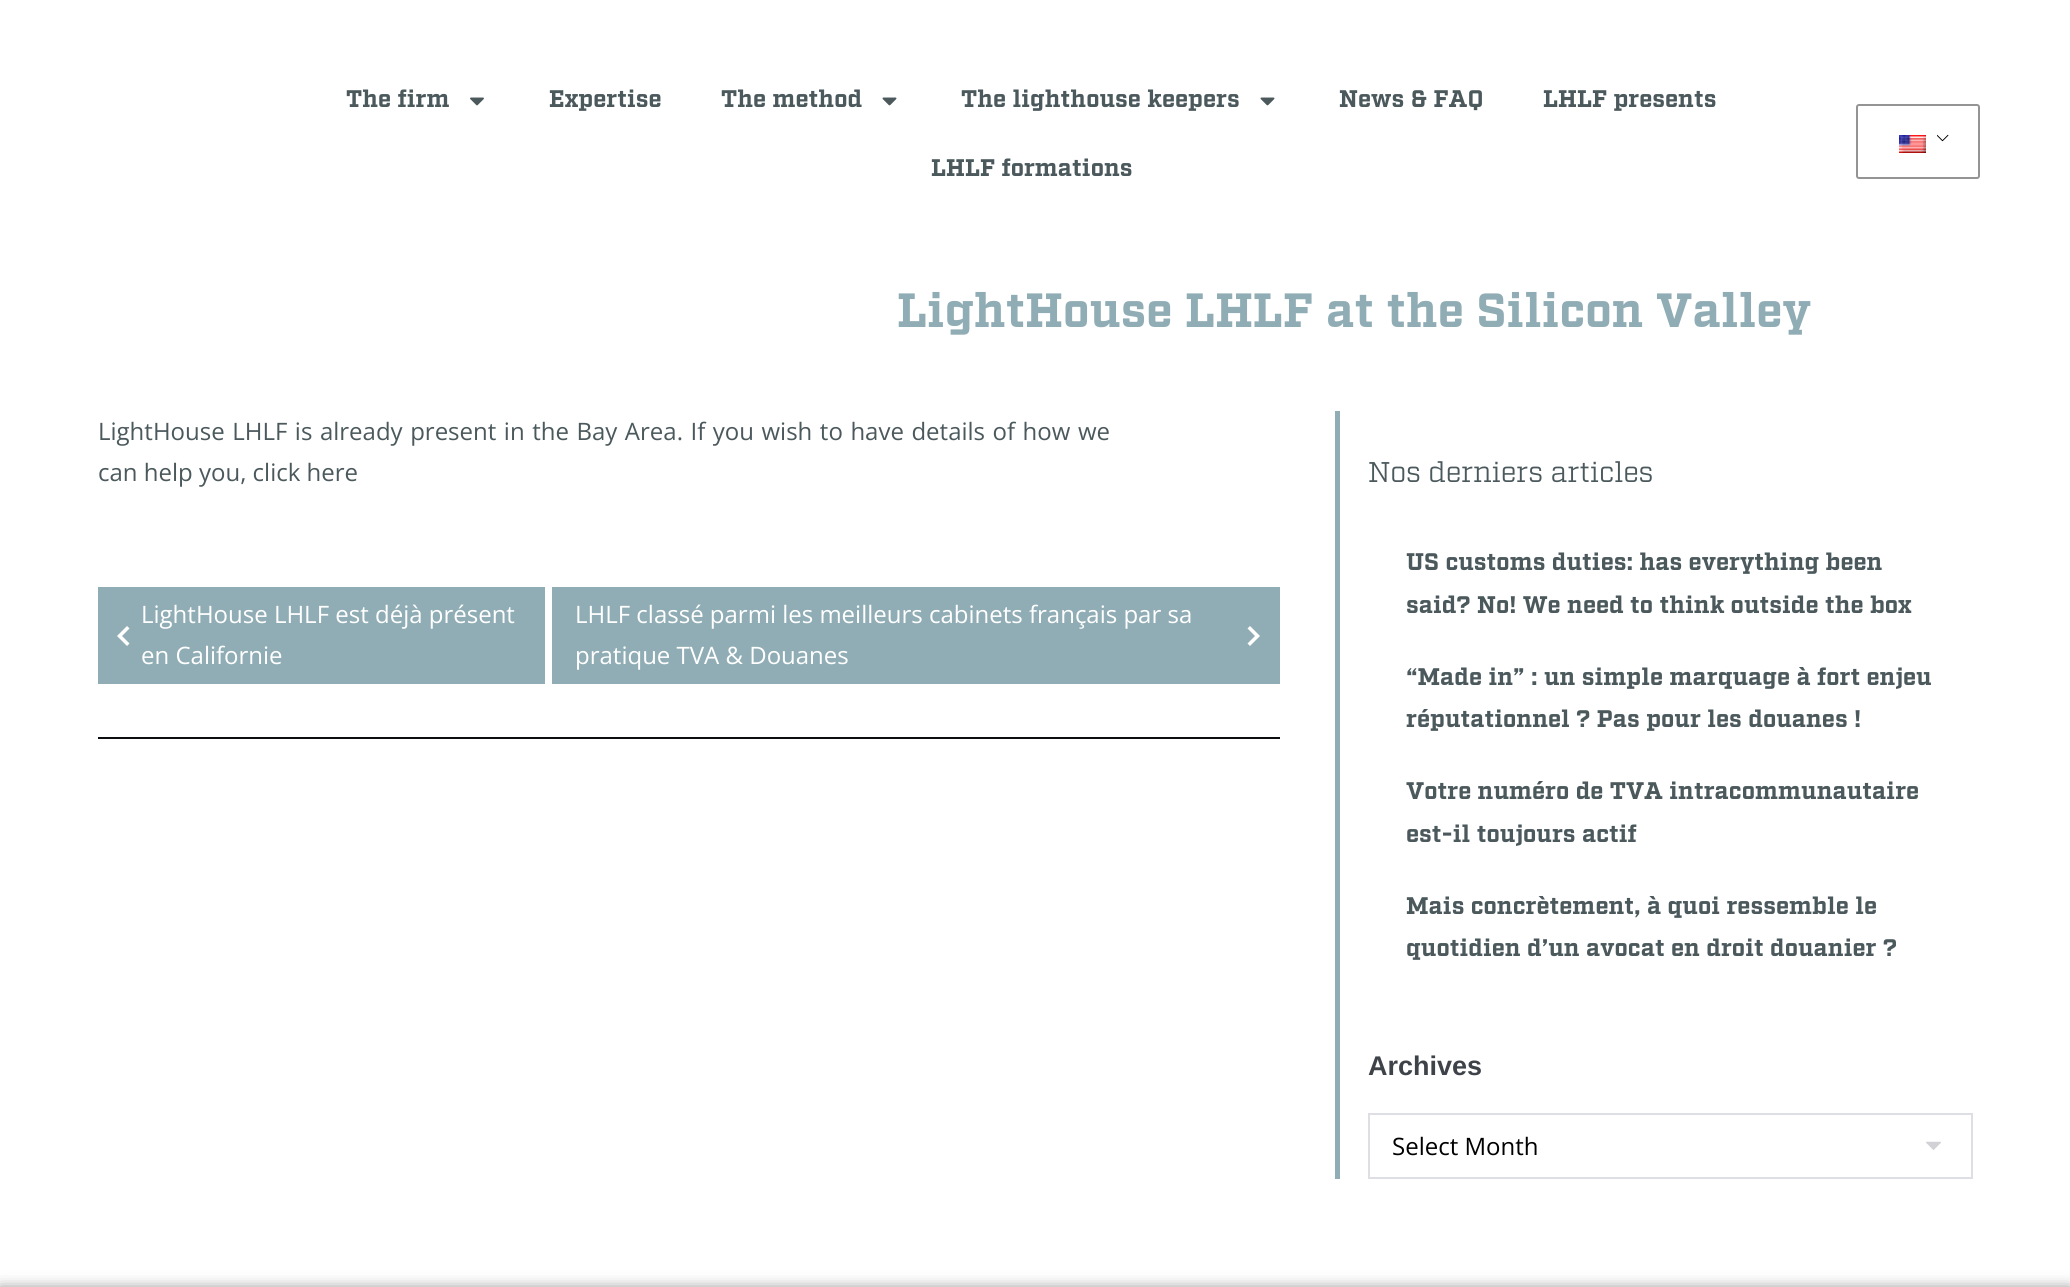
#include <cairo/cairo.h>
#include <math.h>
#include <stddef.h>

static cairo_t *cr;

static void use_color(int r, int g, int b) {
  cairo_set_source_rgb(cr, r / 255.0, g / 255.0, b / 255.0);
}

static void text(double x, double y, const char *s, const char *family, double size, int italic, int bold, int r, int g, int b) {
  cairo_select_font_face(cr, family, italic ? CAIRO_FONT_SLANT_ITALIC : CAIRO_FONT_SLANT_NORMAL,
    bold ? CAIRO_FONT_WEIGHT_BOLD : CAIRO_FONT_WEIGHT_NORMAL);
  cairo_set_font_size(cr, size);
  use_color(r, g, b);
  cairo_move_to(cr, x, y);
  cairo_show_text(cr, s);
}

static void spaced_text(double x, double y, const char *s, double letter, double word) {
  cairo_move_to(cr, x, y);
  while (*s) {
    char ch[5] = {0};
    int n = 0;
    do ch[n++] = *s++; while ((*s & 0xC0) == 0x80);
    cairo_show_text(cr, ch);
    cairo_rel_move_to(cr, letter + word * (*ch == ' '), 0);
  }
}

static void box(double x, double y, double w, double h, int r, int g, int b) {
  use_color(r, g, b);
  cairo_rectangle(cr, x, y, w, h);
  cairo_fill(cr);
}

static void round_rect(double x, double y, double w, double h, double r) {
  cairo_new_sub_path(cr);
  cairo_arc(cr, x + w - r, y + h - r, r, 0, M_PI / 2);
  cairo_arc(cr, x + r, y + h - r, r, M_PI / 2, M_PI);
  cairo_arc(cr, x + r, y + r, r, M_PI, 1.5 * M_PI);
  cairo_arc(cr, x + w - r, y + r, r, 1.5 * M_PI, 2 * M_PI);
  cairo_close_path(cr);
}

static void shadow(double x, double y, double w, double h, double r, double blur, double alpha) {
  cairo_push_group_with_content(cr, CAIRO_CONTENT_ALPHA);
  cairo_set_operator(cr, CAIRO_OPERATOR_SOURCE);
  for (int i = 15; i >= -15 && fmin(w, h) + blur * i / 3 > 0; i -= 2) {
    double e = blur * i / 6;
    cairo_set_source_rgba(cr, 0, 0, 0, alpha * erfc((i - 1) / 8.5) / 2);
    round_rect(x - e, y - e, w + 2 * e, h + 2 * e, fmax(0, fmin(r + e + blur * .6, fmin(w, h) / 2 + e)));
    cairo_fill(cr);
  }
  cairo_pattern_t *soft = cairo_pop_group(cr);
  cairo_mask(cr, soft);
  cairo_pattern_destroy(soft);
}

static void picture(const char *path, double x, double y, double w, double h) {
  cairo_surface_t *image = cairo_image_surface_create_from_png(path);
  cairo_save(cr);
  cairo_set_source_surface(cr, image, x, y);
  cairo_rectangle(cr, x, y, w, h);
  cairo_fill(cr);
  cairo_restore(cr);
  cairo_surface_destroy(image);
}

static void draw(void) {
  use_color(255, 255, 255);
  cairo_paint(cr);
  picture("img_01.png", 470, 97, 14, 9);
  picture("img_02.png", 882, 97, 15, 9);
  picture("img_02.png", 1260, 97, 15, 9);
  picture("img_03.png", 1937, 134, 12, 8);
  round_rect(1857, 105, 122, 73, 2);
  use_color(148, 148, 148);
  cairo_stroke(cr);
  picture("img_04.png", 1899, 135, 27, 18);
  box(98, 587, 447, 97, 144, 173, 181);
  use_color(255, 255, 255);
  cairo_new_path(cr);
  cairo_move_to(cr, 127, 626);
  cairo_line_to(cr, 129.5, 628.5);
  cairo_line_to(cr, 122, 636);
  cairo_line_to(cr, 129.5, 643.5);
  cairo_line_to(cr, 127, 646);
  cairo_line_to(cr, 117, 636);
  cairo_close_path(cr);
  cairo_fill(cr);
  box(552, 587, 728, 97, 144, 173, 181);
  use_color(255, 255, 255);
  cairo_new_path(cr);
  cairo_move_to(cr, 1250, 646);
  cairo_line_to(cr, 1247.5, 643.5);
  cairo_line_to(cr, 1255, 636);
  cairo_line_to(cr, 1247.5, 628.5);
  cairo_line_to(cr, 1250, 626);
  cairo_line_to(cr, 1260, 636);
  cairo_close_path(cr);
  cairo_fill(cr);
  box(98, 737, 1182, 2, 12, 13, 14);
  box(1335, 411, 5, 768, 144, 173, 181);
  picture("img_05.png", 1926, 1141, 15, 9);
  cairo_rectangle(cr, 1369, 1114, 603, 64);
  use_color(222, 222, 229);
  cairo_stroke(cr);
  use_color(0, 0, 0);
  shadow(0, 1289, 2070, 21, 0, 7.5, 0.5);
  text(346, 107, "The firm", "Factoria", 24, 0, 1, 75, 89, 93);
  text(549, 107, "Expertise", "Factoria", 24, 0, 1, 75, 89, 93);
  text(721, 107, "The method", "Factoria", 24, 0, 1, 75, 89, 93);
  text(961, 107, "The lighthouse keepers", "Factoria", 24, 0, 1, 75, 89, 93);
  text(1339, 107, "News & FAQ", "Factoria", 24, 0, 1, 75, 89, 93);
  text(1543, 107, "LHLF presents", "Factoria", 24, 0, 1, 75, 89, 93);
  text(931, 176, "LHLF formations", "Factoria", 24, 0, 1, 75, 89, 93);
  text(897, 327, "LightHouse LHLF at the Silicon Valley", "Factoria", 48, 0, 1, 144, 173, 181);
  cairo_select_font_face(cr, "Open Sans", CAIRO_FONT_SLANT_NORMAL, CAIRO_FONT_WEIGHT_NORMAL);
  cairo_set_font_size(cr, 24);
  use_color(75, 89, 93);
  spaced_text(98, 440, "LightHouse LHLF is already present in the Bay Area. If you wish to have details of how we", 0, 1.3);
  text(98, 481, "can help you, click here", "Open Sans", 24, 0, 0, 75, 89, 93);
  text(141, 623, "LightHouse LHLF est déjà présent", "Open Sans", 24, 0, 0, 255, 255, 255);
  text(141, 664, "en Californie", "Open Sans", 24, 0, 0, 255, 255, 255);
  text(575, 623, "LHLF classé parmi les meilleurs cabinets français par sa", "Open Sans", 24, 0, 0, 255, 255, 255);
  text(575, 664, "pratique TVA & Douanes", "Open Sans", 24, 0, 0, 255, 255, 255);
  text(1368, 482, "Nos derniers articles", "Factoria", 28.5, 0, 0, 75, 89, 93);
  text(1406, 570, "US customs duties: has everything been", "Factoria", 24, 0, 1, 75, 89, 93);
  text(1406, 613, "said? No! We need to think outside the box", "Factoria", 24, 0, 1, 75, 89, 93);
  text(1406, 685, "“Made in” : un simple marquage à fort enjeu", "Factoria", 24, 0, 1, 75, 89, 93);
  text(1406, 727, "réputationnel ? Pas pour les douanes !", "Factoria", 24, 0, 1, 75, 89, 93);
  text(1406, 799, "Votre numéro de TVA intracommunautaire", "Factoria", 24, 0, 1, 75, 89, 93);
  text(1406, 842, "est-il toujours actif", "Factoria", 24, 0, 1, 75, 89, 93);
  text(1406, 914, "Mais concrètement, à quoi ressemble le", "Factoria", 24, 0, 1, 75, 89, 93);
  text(1406, 956, "quotidien d’un avocat en droit douanier ?", "Factoria", 24, 0, 1, 75, 89, 93);
  text(1368, 1075, "Archives", "Liberation Sans", 27, 0, 1, 62, 67, 73);
  text(1392, 1155, "Select Month", "Open Sans", 24, 0, 0, 0, 0, 0);
}

int main(void) {
  cairo_surface_t *surface = cairo_image_surface_create(CAIRO_FORMAT_RGB24, 2070, 1287);
  cr = cairo_create(surface);
  cairo_font_options_t *options = cairo_font_options_create();
  cairo_font_options_set_hint_metrics(options, CAIRO_HINT_METRICS_OFF);
  cairo_font_options_set_hint_style(options, CAIRO_HINT_STYLE_NONE);
  cairo_set_font_options(cr, options);
  cairo_set_miter_limit(cr, 4);
  draw();
  cairo_surface_write_to_png(surface, "out.png");
  cairo_font_options_destroy(options);
  cairo_destroy(cr);
  cairo_surface_destroy(surface);
  return 0;
}
